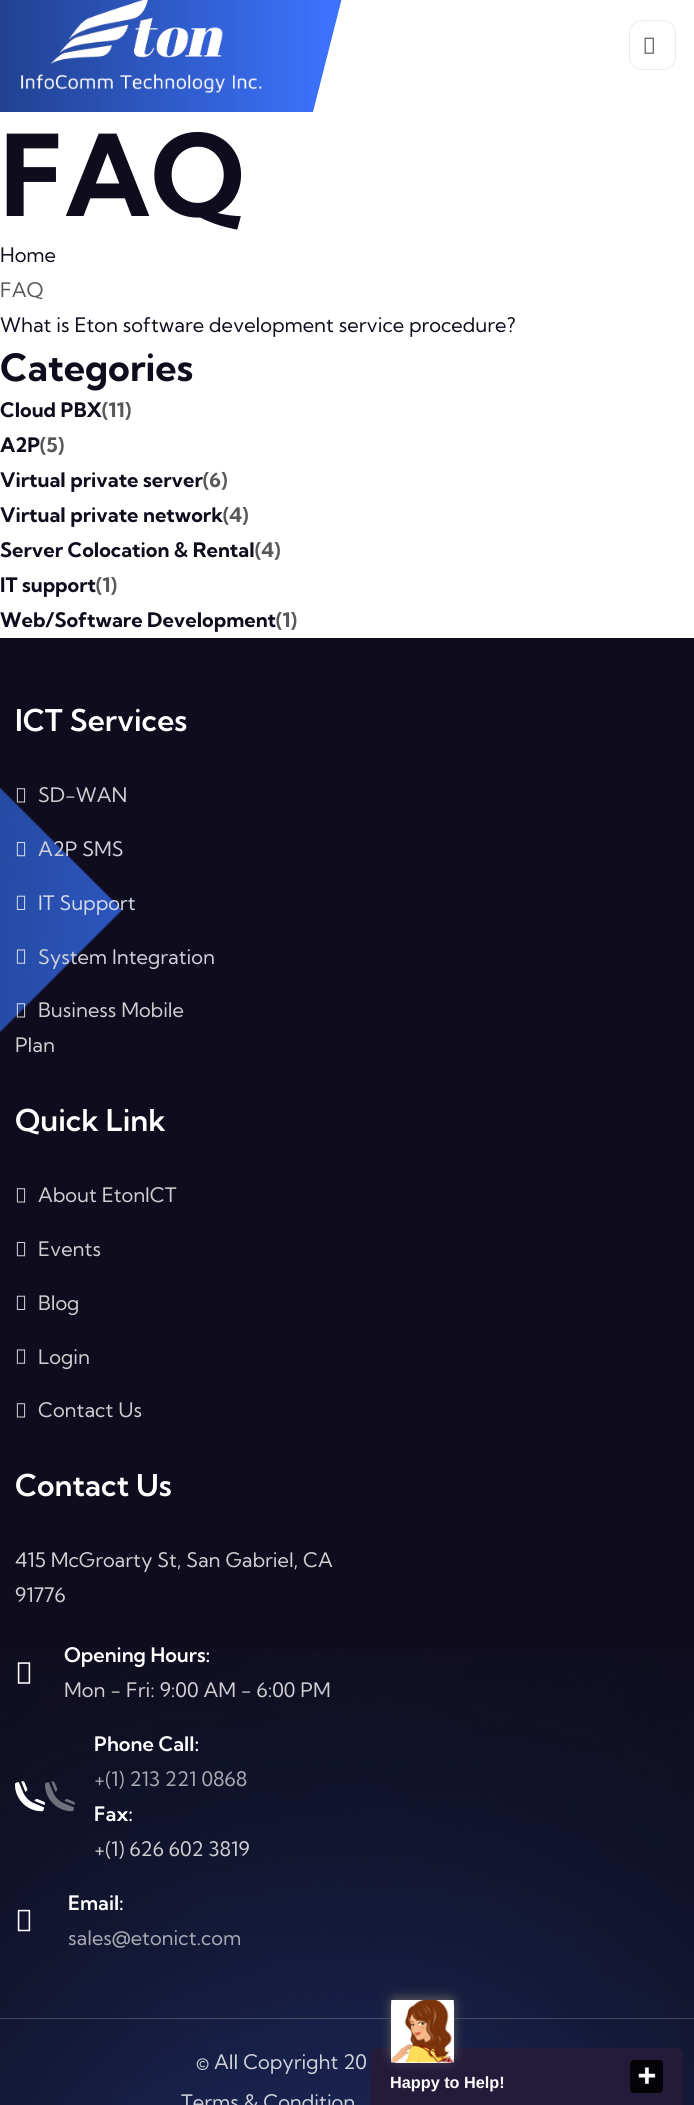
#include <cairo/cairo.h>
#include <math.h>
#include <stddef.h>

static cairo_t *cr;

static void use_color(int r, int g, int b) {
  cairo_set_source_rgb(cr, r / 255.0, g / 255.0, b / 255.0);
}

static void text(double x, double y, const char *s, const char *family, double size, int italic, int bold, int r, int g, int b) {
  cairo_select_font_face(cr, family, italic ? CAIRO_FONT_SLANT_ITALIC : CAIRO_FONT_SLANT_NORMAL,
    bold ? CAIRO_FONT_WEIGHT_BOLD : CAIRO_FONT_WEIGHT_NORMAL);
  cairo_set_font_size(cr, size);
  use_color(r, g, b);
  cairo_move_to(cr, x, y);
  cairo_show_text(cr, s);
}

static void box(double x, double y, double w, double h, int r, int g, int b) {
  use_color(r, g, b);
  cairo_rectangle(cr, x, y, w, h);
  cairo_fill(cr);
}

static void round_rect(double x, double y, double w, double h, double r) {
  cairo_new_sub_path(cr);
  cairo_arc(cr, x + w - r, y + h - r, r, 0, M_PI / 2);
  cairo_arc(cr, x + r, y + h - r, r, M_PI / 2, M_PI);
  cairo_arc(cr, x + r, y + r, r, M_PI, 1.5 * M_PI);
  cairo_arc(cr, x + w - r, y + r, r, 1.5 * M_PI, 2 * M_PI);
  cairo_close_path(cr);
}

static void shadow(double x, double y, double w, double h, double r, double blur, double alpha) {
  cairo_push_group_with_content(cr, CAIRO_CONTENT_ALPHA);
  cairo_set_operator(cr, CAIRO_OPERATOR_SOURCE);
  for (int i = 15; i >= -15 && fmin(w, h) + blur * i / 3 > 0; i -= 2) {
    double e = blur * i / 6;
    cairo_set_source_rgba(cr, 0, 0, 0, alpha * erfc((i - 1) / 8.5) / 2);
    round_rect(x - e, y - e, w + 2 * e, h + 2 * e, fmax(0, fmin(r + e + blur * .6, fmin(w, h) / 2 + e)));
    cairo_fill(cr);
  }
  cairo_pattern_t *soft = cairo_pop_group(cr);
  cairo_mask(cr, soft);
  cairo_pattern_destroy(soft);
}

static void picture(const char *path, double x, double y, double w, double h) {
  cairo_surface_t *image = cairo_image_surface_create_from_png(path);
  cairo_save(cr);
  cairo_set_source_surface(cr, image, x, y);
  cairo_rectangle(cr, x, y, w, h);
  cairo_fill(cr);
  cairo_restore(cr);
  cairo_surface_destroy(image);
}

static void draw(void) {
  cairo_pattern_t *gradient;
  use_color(255, 255, 255);
  cairo_paint(cr);
  gradient = cairo_pattern_create_linear(348, 45, -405, 45);
  cairo_pattern_add_color_stop_rgba(gradient, 0.03, 0.235, 0.447, 0.988, 1);
  cairo_pattern_add_color_stop_rgba(gradient, 1, 0, 0.024, 0.047, 1);
  cairo_set_source(cr, gradient);
  cairo_pattern_destroy(gradient);
  cairo_new_path(cr);
  cairo_move_to(cr, 0, -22);
  cairo_line_to(cr, 0, 112);
  cairo_line_to(cr, 313, 112);
  cairo_line_to(cr, 347, -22);
  cairo_close_path(cr);
  cairo_fill(cr);
  picture("img_01.png", 21, 0, 241, 94);
  round_rect(629.5, 20.5, 46, 49, 12.5);
  use_color(234, 236, 240);
  cairo_set_line_width(cr, 1);
  cairo_stroke(cr);
  picture("img_02.png", 644, 37, 10, 17);
  box(0, 638, 694, 1467, 15, 13, 29);
  picture("img_16.png", 0, 787, 123, 246);
  picture("img_03.png", 16, 788, 10, 15);
  picture("img_04.png", 16, 841, 10, 16);
  picture("img_05.png", 16, 895, 10, 15);
  picture("img_06.png", 16, 949, 10, 15);
  picture("img_07.png", 16, 1003, 10, 15);
  picture("img_08.png", 16, 1188, 10, 15);
  picture("img_09.png", 16, 1241, 10, 16);
  picture("img_10.png", 16, 1295, 10, 15);
  picture("img_11.png", 16, 1349, 10, 15);
  picture("img_08.png", 16, 1403, 10, 15);
  picture("img_17.png", 0, 1649, 694, 456);
  picture("img_12.png", 17, 1662, 14, 22);
  picture("img_13.png", 15, 1781, 30, 31);
  picture("img_14.png", 15, 1781, 60, 31);
  picture("img_15.png", 17, 1909, 14, 23);
  cairo_set_source_rgba(cr, 1, 1, 0.882, 0.2);
  cairo_rectangle(cr, 0, 2018, 694, 1);
  cairo_fill(cr);
  use_color(36, 27, 59);
  cairo_new_path(cr);
  cairo_move_to(cr, 376, 2048);
  cairo_line_to(cr, 677, 2048);
  cairo_curve_to(cr, 680.5, 2048, 683, 2050.5, 683, 2054);
  cairo_line_to(cr, 683, 2105);
  cairo_line_to(cr, 370, 2105);
  cairo_line_to(cr, 370, 2054);
  cairo_curve_to(cr, 370, 2050.5, 372.5, 2048, 376, 2048);
  cairo_close_path(cr);
  cairo_fill(cr);
  use_color(95, 95, 94);
  shadow(391, 1998, 63, 62, 6, 5.5, 1);
  use_color(255, 255, 255);
  round_rect(391, 2000, 63, 63, 6);
  cairo_fill(cr);
  picture("img_18.png", 391, 2000, 63, 63);
  use_color(4, 3, 7);
  round_rect(630, 2060, 33, 33, 4);
  cairo_fill(cr);
  picture("img_19.png", 638, 2067, 18, 17);
  text(0, 216, "FAQ", "Kumbh Sans", 112.5, 0, 1, 15, 13, 29);
  text(0, 262, "Home", "Kumbh Sans", 20, 0, 0, 15, 13, 29);
  text(0, 297, "FAQ", "Kumbh Sans", 20, 0, 0, 88, 88, 88);
  text(0, 332, "What is Eton software development service procedure?", "Kumbh Sans", 20, 0, 0, 15, 13, 29);
  text(0, 381, "Categories", "Kumbh Sans", 37.5, 0, 1, 15, 13, 29);
  text(0, 417, "Cloud PBX", "Kumbh Sans", 20, 0, 1, 15, 13, 29);
  text(102, 417, "(11)", "Kumbh Sans", 20, 0, 1, 88, 88, 88);
  text(0, 452, "A2P", "Kumbh Sans", 20, 0, 1, 15, 13, 29);
  text(40, 452, "(5)", "Kumbh Sans", 20, 0, 1, 88, 88, 88);
  text(0, 487, "Virtual private server", "Kumbh Sans", 20, 0, 1, 15, 13, 29);
  text(203, 487, "(6)", "Kumbh Sans", 20, 0, 1, 88, 88, 88);
  text(0, 522, "Virtual private network", "Kumbh Sans", 20, 0, 1, 15, 13, 29);
  text(223, 522, "(4)", "Kumbh Sans", 20, 0, 1, 88, 88, 88);
  text(0, 557, "Server Colocation & Rental", "Kumbh Sans", 20, 0, 1, 15, 13, 29);
  text(255, 557, "(4)", "Kumbh Sans", 20, 0, 1, 88, 88, 88);
  text(0, 592, "IT support", "Kumbh Sans", 20, 0, 1, 15, 13, 29);
  text(96, 592, "(1)", "Kumbh Sans", 20, 0, 1, 88, 88, 88);
  text(0, 627, "Web/Software Development", "Kumbh Sans", 20, 0, 1, 15, 13, 29);
  text(276, 627, "(1)", "Kumbh Sans", 20, 0, 1, 88, 88, 88);
  text(15, 731, "ICT Services", "Kumbh Sans SemiBold", 30, 0, 0, 255, 255, 255);
  text(38, 802, "SD-WAN", "Kumbh Sans", 20, 0, 0, 207, 207, 210);
  text(38, 856, "A2P SMS", "Kumbh Sans", 20, 0, 0, 208, 210, 218);
  text(38, 910, "IT Support", "Kumbh Sans", 20, 0, 0, 211, 218, 235);
  text(38, 964, "System Integration", "Kumbh Sans", 20, 0, 0, 208, 210, 218);
  text(38, 1017, "Business Mobile", "Kumbh Sans", 20, 0, 0, 207, 207, 210);
  text(15, 1052, "Plan", "Kumbh Sans", 20, 0, 0, 207, 207, 210);
  text(15, 1131, "Quick Link", "Kumbh Sans SemiBold", 30, 0, 0, 255, 255, 255);
  text(38, 1202, "About EtonICT", "Kumbh Sans", 20, 0, 0, 207, 207, 210);
  text(38, 1256, "Events", "Kumbh Sans", 20, 0, 0, 207, 207, 210);
  text(38, 1310, "Blog", "Kumbh Sans", 20, 0, 0, 207, 207, 210);
  text(38, 1364, "Login", "Kumbh Sans", 20, 0, 0, 207, 207, 210);
  text(38, 1417, "Contact Us", "Kumbh Sans", 20, 0, 0, 207, 207, 210);
  text(15, 1496, "Contact Us", "Kumbh Sans SemiBold", 30, 0, 0, 255, 255, 255);
  text(15, 1567, "415 McGroarty St, San Gabriel, CA", "Kumbh Sans", 20, 0, 0, 207, 207, 210);
  text(15, 1602, "91776", "Kumbh Sans", 20, 0, 0, 207, 207, 210);
  text(64, 1662, "Opening Hours:", "Kumbh Sans SemiBold", 20, 0, 0, 255, 255, 255);
  text(64, 1697, "Mon - Fri: 9:00 AM - 6:00 PM", "Kumbh Sans", 20, 0, 0, 207, 207, 210);
  text(94, 1751, "Phone Call:", "Kumbh Sans SemiBold", 20, 0, 0, 255, 255, 255);
  text(94, 1786, "+(1) 213 221 0868", "Kumbh Sans", 20, 0, 0, 169, 170, 178);
  text(94, 1821, "Fax:", "Kumbh Sans SemiBold", 20, 0, 0, 255, 255, 255);
  text(94, 1856, "+(1) 626 602 3819", "Kumbh Sans", 20, 0, 0, 207, 207, 210);
  text(68, 1910, "Email:", "Kumbh Sans SemiBold", 20, 0, 0, 255, 255, 255);
  text(68, 1945, "sales@etonict.com", "Kumbh Sans", 20, 0, 0, 169, 170, 178);
  text(196, 2069, "© All Copyright 20", "Kumbh Sans", 20, 0, 0, 208, 210, 218);
  text(181, 2109, "Terms & Condition", "Kumbh Sans", 20, 0, 0, 208, 210, 218);
  text(390, 2088, "Happy to Help!", "Liberation Sans", 16.25, 0, 1, 255, 255, 255);
}

int main(void) {
  cairo_surface_t *surface = cairo_image_surface_create(CAIRO_FORMAT_RGB24, 694, 2105);
  cr = cairo_create(surface);
  cairo_font_options_t *options = cairo_font_options_create();
  cairo_font_options_set_hint_metrics(options, CAIRO_HINT_METRICS_OFF);
  cairo_font_options_set_hint_style(options, CAIRO_HINT_STYLE_NONE);
  cairo_set_font_options(cr, options);
  cairo_set_miter_limit(cr, 4);
  draw();
  cairo_surface_write_to_png(surface, "out.png");
  cairo_font_options_destroy(options);
  cairo_destroy(cr);
  cairo_surface_destroy(surface);
  return 0;
}
